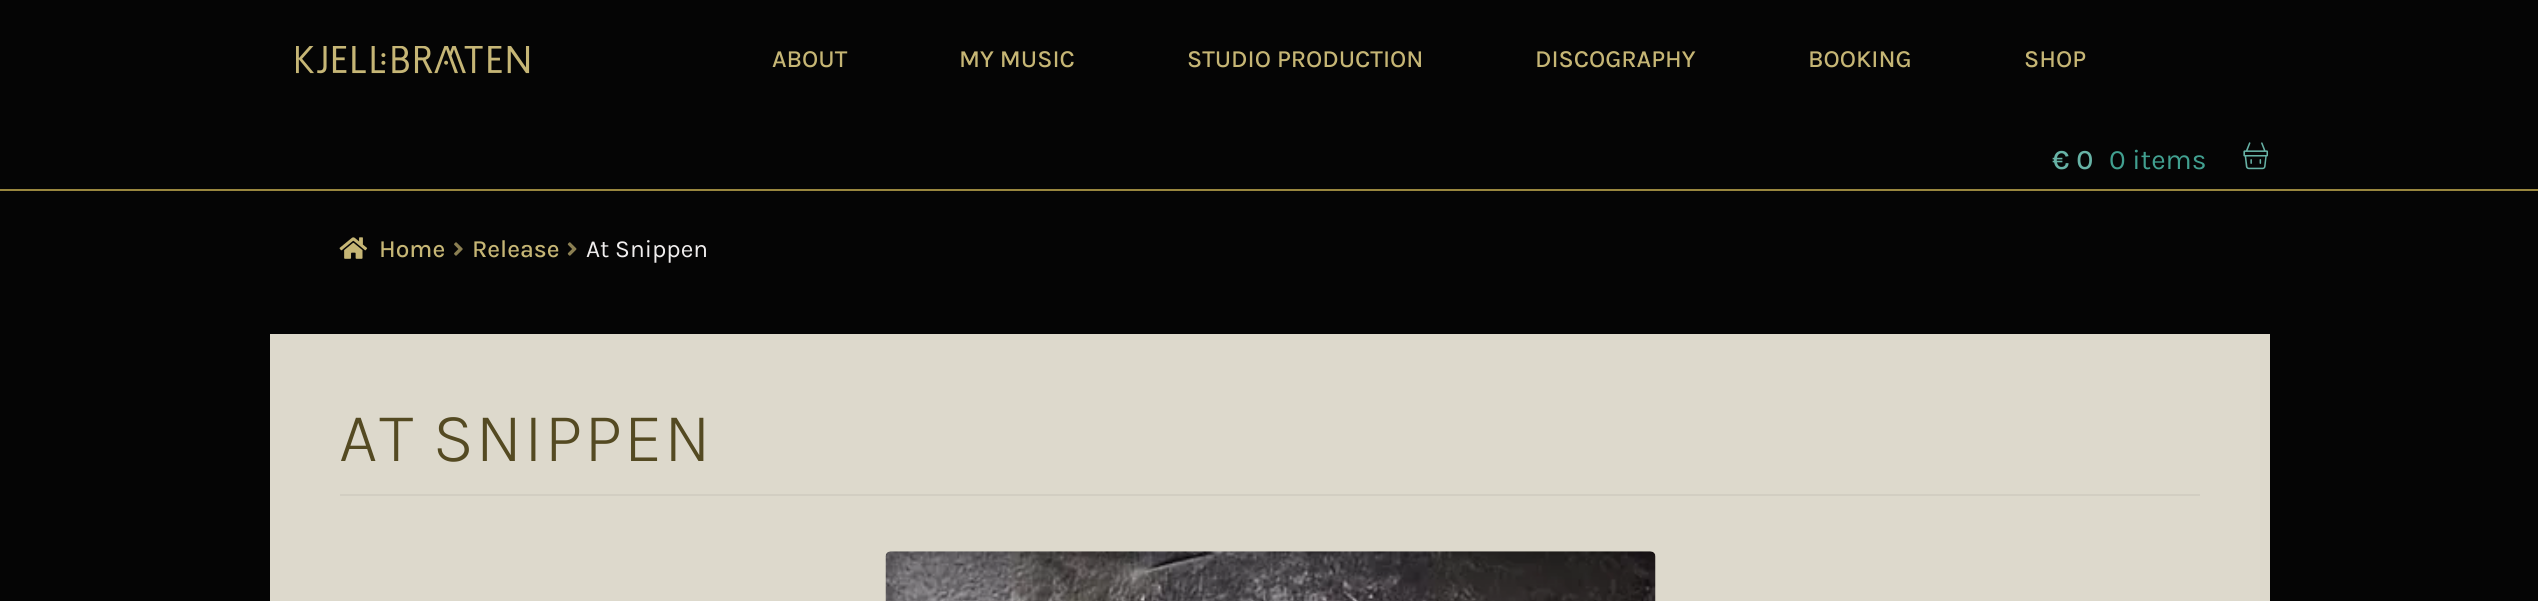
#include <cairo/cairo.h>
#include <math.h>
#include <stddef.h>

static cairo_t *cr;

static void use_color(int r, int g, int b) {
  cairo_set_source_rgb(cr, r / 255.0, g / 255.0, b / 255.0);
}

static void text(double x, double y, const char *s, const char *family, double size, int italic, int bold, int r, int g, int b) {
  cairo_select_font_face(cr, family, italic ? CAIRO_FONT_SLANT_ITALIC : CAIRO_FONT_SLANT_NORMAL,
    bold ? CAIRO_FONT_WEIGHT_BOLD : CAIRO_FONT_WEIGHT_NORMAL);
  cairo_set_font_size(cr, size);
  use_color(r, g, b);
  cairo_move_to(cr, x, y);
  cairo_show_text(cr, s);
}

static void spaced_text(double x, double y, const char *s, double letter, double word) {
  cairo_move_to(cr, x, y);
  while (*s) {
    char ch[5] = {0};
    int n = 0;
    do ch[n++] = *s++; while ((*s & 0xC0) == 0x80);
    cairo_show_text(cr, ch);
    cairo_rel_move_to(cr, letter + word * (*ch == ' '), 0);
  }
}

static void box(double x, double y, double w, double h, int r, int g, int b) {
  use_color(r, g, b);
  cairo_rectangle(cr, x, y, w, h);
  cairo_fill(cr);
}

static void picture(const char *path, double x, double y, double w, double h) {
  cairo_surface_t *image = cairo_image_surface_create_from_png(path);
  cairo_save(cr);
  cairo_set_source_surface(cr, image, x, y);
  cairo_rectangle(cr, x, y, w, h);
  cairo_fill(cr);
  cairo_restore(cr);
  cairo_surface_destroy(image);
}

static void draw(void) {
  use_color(5, 5, 5);
  cairo_paint(cr);
  box(0, 189, 2538, 2, 153, 135, 63);
  picture("img_01.png", 296, 46, 234, 28);
  picture("img_02.png", 2243, 142, 25, 28);
  picture("img_03.png", 339, 237, 29, 22);
  picture("img_04.png", 454, 242, 9, 14);
  picture("img_05.png", 567, 242, 10, 14);
  box(270, 334, 2000, 267, 221, 217, 204);
  box(340, 494, 1860, 2, 210, 206, 194);
  picture("img_06.png", 885, 551, 771, 50);
  text(772, 67, "ABOUT", "Karla Medium", 24.5, 0, 0, 198, 182, 117);
  text(959, 67, "MY MUSIC", "Karla Medium", 24.5, 0, 0, 198, 182, 117);
  text(1187, 67, "STUDIO PRODUCTION", "Karla Medium", 24.5, 0, 0, 198, 182, 117);
  text(1535, 67, "DISCOGRAPHY", "Karla Medium", 24.5, 0, 0, 198, 182, 117);
  text(1808, 67, "BOOKING", "Karla Medium", 24.5, 0, 0, 198, 182, 117);
  text(2024, 67, "SHOP", "Karla Medium", 24.5, 0, 0, 198, 182, 117);
  text(2052, 169, "€ 0", "Karla Medium", 28, 0, 0, 103, 179, 166);
  text(2109, 169, "0 items", "Karla", 28, 0, 0, 65, 160, 144);
  text(379, 257, "Home", "Karla Medium", 24.5, 0, 0, 198, 182, 117);
  text(472, 257, "Release", "Karla Medium", 24.5, 0, 0, 198, 182, 117);
  text(586, 257, "At Snippen", "Karla", 24.5, 0, 0, 240, 238, 238);
  cairo_select_font_face(cr, "Karla Light", CAIRO_FONT_SLANT_NORMAL, CAIRO_FONT_WEIGHT_NORMAL);
  cairo_set_font_size(cr, 70);
  use_color(84, 74, 34);
  spaced_text(339, 461, "AT SNIPPEN", 1.75, 0);
}

int main(void) {
  cairo_surface_t *surface = cairo_image_surface_create(CAIRO_FORMAT_RGB24, 2538, 601);
  cr = cairo_create(surface);
  cairo_font_options_t *options = cairo_font_options_create();
  cairo_font_options_set_hint_metrics(options, CAIRO_HINT_METRICS_OFF);
  cairo_font_options_set_hint_style(options, CAIRO_HINT_STYLE_NONE);
  cairo_set_font_options(cr, options);
  cairo_set_miter_limit(cr, 4);
  draw();
  cairo_surface_write_to_png(surface, "out.png");
  cairo_font_options_destroy(options);
  cairo_destroy(cr);
  cairo_surface_destroy(surface);
  return 0;
}
